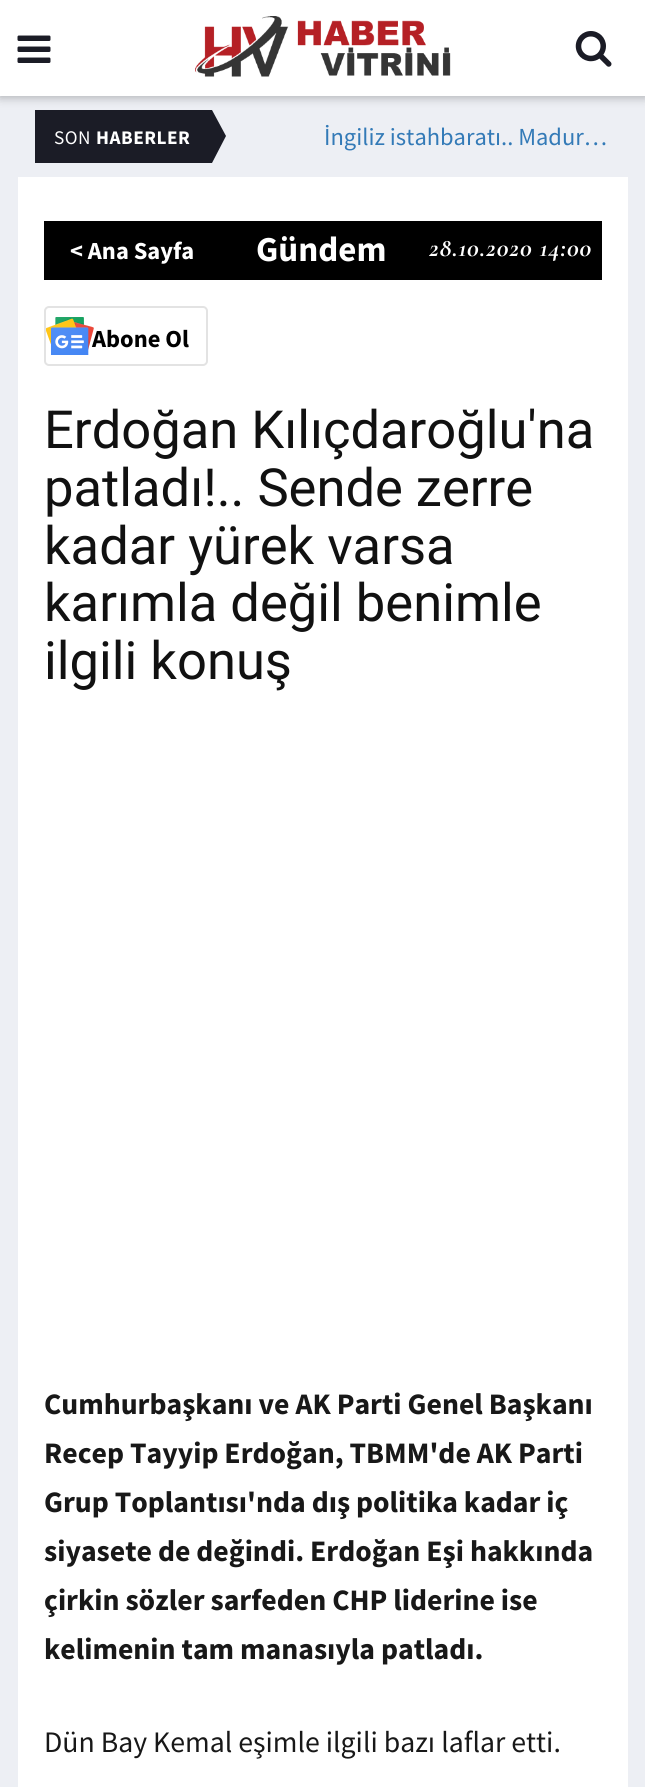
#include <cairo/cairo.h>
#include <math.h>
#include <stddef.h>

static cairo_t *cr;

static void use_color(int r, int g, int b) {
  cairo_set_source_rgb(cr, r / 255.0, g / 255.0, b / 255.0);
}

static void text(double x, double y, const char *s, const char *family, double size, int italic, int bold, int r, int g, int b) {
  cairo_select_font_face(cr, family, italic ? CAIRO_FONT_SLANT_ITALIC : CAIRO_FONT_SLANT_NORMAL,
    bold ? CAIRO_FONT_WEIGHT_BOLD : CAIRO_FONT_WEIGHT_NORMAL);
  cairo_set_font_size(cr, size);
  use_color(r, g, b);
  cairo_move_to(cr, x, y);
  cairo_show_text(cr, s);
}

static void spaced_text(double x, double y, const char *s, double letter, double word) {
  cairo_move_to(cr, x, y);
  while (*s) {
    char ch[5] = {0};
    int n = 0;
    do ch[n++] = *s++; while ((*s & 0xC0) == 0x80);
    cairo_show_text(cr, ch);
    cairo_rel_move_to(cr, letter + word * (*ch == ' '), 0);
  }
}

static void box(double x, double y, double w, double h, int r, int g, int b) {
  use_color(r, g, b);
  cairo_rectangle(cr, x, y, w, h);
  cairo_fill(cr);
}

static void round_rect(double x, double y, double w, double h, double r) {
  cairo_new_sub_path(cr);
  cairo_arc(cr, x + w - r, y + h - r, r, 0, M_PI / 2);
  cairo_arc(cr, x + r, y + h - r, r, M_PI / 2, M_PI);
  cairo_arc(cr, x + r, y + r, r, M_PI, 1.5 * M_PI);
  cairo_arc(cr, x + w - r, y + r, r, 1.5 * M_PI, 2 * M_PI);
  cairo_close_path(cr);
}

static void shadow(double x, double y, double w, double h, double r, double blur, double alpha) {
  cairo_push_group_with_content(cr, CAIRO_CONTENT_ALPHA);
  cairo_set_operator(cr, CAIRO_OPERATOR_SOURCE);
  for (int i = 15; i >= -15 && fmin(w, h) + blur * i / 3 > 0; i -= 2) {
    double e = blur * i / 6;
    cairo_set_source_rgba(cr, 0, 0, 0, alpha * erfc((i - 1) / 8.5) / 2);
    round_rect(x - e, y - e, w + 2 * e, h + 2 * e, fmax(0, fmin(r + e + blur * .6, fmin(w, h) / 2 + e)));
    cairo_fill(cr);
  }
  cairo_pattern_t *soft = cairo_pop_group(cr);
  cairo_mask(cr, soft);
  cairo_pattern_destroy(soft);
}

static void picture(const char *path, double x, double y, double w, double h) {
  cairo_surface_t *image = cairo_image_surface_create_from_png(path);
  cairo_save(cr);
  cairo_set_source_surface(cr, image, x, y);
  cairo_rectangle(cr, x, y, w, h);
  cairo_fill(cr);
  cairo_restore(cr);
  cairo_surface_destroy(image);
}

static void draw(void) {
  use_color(237, 239, 244);
  cairo_paint(cr);
  use_color(0, 0, 0);
  shadow(0, 2, 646, 96, 0, 4.5, 0.25);
  box(0, 0, 645, 96, 255, 255, 255);
  picture("img_01.png", 17, 35, 34, 28);
  picture("img_02.png", 195, 16, 256, 61);
  picture("img_03.png", 575, 31, 37, 36);
  box(35, 110, 177, 53, 27, 28, 38);
  cairo_new_path(cr);
  cairo_move_to(cr, 212, 163);
  cairo_line_to(cr, 212, 110);
  cairo_line_to(cr, 226, 136);
  cairo_close_path(cr);
  cairo_fill(cr);
  box(18, 177, 610, 1610, 255, 255, 255);
  box(44, 221, 558, 59, 0, 0, 0);
  picture("img_04.png", 46, 317, 48, 38);
  round_rect(45, 307, 162, 58, 4);
  use_color(227, 227, 227);
  cairo_stroke(cr);
  cairo_select_font_face(cr, "Source Sans Pro", CAIRO_FONT_SLANT_NORMAL, CAIRO_FONT_WEIGHT_NORMAL);
  cairo_set_font_size(cr, 19.25);
  use_color(255, 255, 255);
  spaced_text(54, 144, "SON", 0.5, 0);
  cairo_select_font_face(cr, "Source Sans Pro", CAIRO_FONT_SLANT_NORMAL, CAIRO_FONT_WEIGHT_BOLD);
  spaced_text(96, 144, "HABERLER", 0.5, 0);
  text(324, 145, "İngiliz istahbaratı.. Madur…", "Source Sans Pro", 24.5, 0, 0, 51, 122, 183);
  text(70, 259, "< Ana Sayfa", "Source Sans Pro", 24.5, 0, 1, 255, 255, 255);
  text(256, 261, "Gündem", "Source Sans Pro", 35, 0, 1, 255, 255, 255);
  cairo_select_font_face(cr, "Cormorant Garamond", CAIRO_FONT_SLANT_ITALIC, CAIRO_FONT_WEIGHT_BOLD);
  cairo_set_font_size(cr, 26.25);
  spaced_text(429, 256, "28.10.2020 14:00", 0.9, 0);
  text(92, 347, "Abone Ol", "Source Sans Pro", 24.5, 0, 1, 0, 0, 0);
  text(44, 448, "Erdoğan Kılıçdaroğlu'na", "Roboto", 52.5, 0, 0, 17, 17, 17);
  text(44, 506, "patladı!.. Sende zerre", "Roboto", 52.5, 0, 0, 17, 17, 17);
  text(44, 564, "kadar yürek varsa", "Roboto", 52.5, 0, 0, 17, 17, 17);
  text(44, 621, "karımla değil benimle", "Roboto", 52.5, 0, 0, 17, 17, 17);
  text(44, 679, "ilgili konuş", "Roboto", 52.5, 0, 0, 17, 17, 17);
  text(44, 1414, "Cumhurbaşkanı ve AK Parti Genel Başkanı", "Source Sans Pro", 29.75, 0, 1, 24, 24, 24);
  text(44, 1463, "Recep Tayyip Erdoğan, TBMM'de AK Parti", "Source Sans Pro", 29.75, 0, 1, 24, 24, 24);
  text(44, 1512, "Grup Toplantısı'nda dış politika kadar iç", "Source Sans Pro", 29.75, 0, 1, 24, 24, 24);
  text(44, 1561, "siyasete de değindi. Erdoğan Eşi hakkında", "Source Sans Pro", 29.75, 0, 1, 24, 24, 24);
  text(44, 1610, "çirkin sözler sarfeden CHP liderine ise", "Source Sans Pro", 29.75, 0, 1, 24, 24, 24);
  text(44, 1659, "kelimenin tam manasıyla patladı.", "Source Sans Pro", 29.75, 0, 1, 24, 24, 24);
  text(44, 1752, "Dün Bay Kemal eşimle ilgili bazı laflar etti.", "Source Sans Pro", 29.75, 0, 0, 24, 24, 24);
}

int main(void) {
  cairo_surface_t *surface = cairo_image_surface_create(CAIRO_FORMAT_RGB24, 645, 1787);
  cr = cairo_create(surface);
  cairo_font_options_t *options = cairo_font_options_create();
  cairo_font_options_set_hint_metrics(options, CAIRO_HINT_METRICS_OFF);
  cairo_font_options_set_hint_style(options, CAIRO_HINT_STYLE_NONE);
  cairo_set_font_options(cr, options);
  cairo_set_miter_limit(cr, 4);
  draw();
  cairo_surface_write_to_png(surface, "out.png");
  cairo_font_options_destroy(options);
  cairo_destroy(cr);
  cairo_surface_destroy(surface);
  return 0;
}
